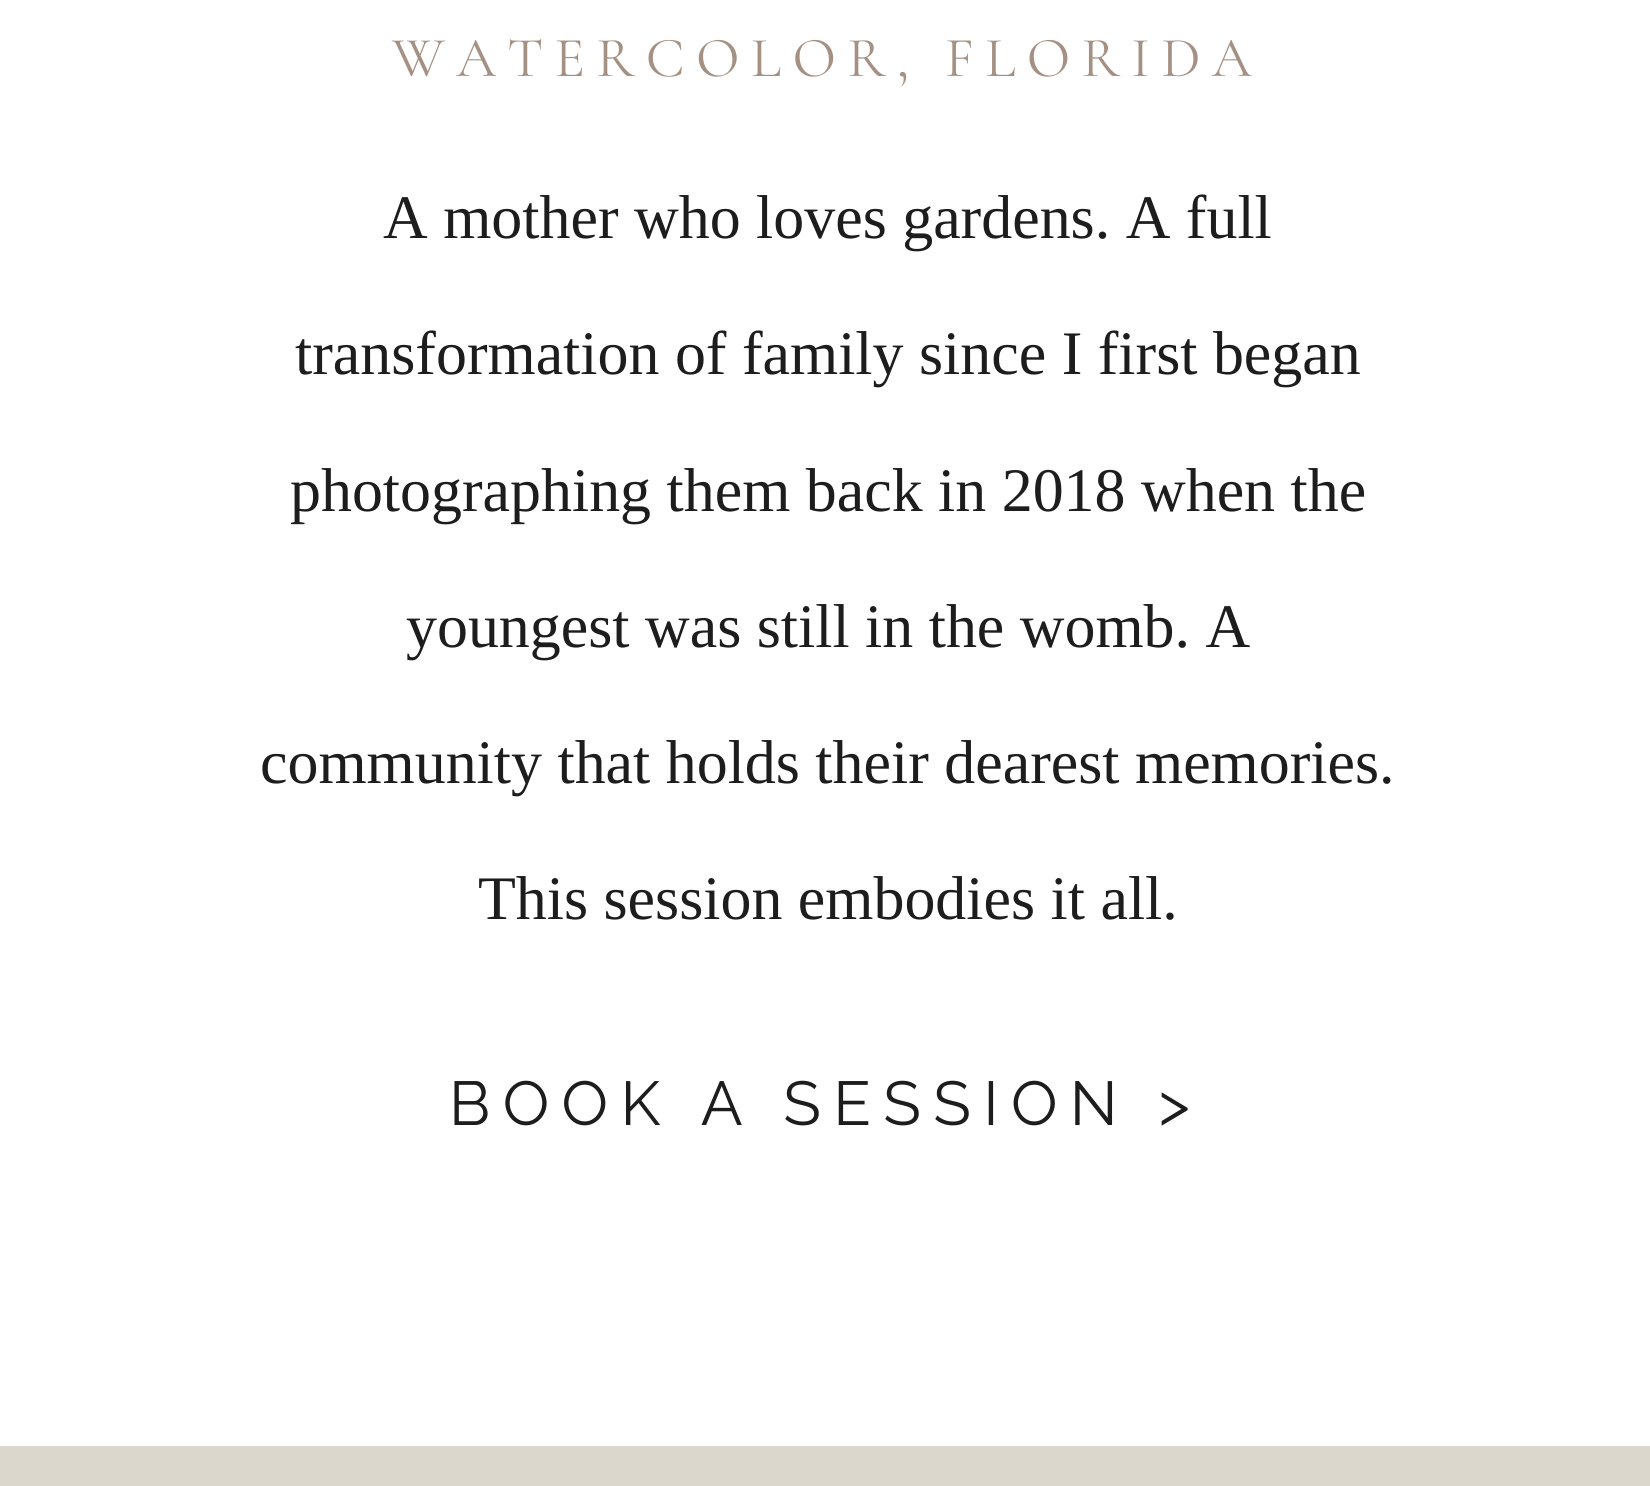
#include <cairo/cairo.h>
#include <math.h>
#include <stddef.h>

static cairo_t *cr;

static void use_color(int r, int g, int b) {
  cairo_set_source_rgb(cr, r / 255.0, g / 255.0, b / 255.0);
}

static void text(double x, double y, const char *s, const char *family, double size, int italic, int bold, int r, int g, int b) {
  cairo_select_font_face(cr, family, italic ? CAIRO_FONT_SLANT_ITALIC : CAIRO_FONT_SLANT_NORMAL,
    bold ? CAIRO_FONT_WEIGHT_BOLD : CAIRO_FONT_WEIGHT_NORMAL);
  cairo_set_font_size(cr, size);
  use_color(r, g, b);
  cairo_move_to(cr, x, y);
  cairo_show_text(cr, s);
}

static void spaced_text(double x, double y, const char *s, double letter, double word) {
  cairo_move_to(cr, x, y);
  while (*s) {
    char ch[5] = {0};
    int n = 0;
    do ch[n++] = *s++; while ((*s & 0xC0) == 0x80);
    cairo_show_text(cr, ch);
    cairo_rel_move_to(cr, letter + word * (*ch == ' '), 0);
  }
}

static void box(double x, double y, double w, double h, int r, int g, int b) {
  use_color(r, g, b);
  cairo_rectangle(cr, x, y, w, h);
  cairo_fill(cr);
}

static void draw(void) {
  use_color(255, 255, 255);
  cairo_paint(cr);
  box(0, 1446, 1650, 40, 220, 215, 205);
  cairo_select_font_face(cr, "Cormorant Garamond Light", CAIRO_FONT_SLANT_NORMAL, CAIRO_FONT_WEIGHT_NORMAL);
  cairo_set_font_size(cr, 56.75);
  use_color(165, 145, 132);
  spaced_text(392, 76, "WATERCOLOR, FLORIDA", 11.3, 0);
  text(383, 238, "A mother who loves gardens. A full", "Liberation Serif", 61.9, 0, 0, 29, 29, 29);
  text(295, 374, "transformation of family since I first began", "Liberation Serif", 61.9, 0, 0, 29, 29, 29);
  text(290, 511, "photographing them back in 2018 when the", "Liberation Serif", 61.9, 0, 0, 29, 29, 29);
  text(406, 647, "youngest was still in the womb. A", "Liberation Serif", 61.9, 0, 0, 29, 29, 29);
  text(260, 783, "community that holds their dearest memories.", "Liberation Serif", 61.9, 0, 0, 29, 29, 29);
  text(478, 919, "This session embodies it all.", "Liberation Serif", 61.9, 0, 0, 29, 29, 29);
  cairo_select_font_face(cr, "Raleway Thin", CAIRO_FONT_SLANT_NORMAL, CAIRO_FONT_WEIGHT_NORMAL);
  spaced_text(449, 1125, "BOOK A SESSION >", 12.4, 0);
}

int main(void) {
  cairo_surface_t *surface = cairo_image_surface_create(CAIRO_FORMAT_RGB24, 1650, 1486);
  cr = cairo_create(surface);
  cairo_font_options_t *options = cairo_font_options_create();
  cairo_font_options_set_hint_metrics(options, CAIRO_HINT_METRICS_OFF);
  cairo_font_options_set_hint_style(options, CAIRO_HINT_STYLE_NONE);
  cairo_set_font_options(cr, options);
  cairo_set_miter_limit(cr, 4);
  draw();
  cairo_surface_write_to_png(surface, "out.png");
  cairo_font_options_destroy(options);
  cairo_destroy(cr);
  cairo_surface_destroy(surface);
  return 0;
}
